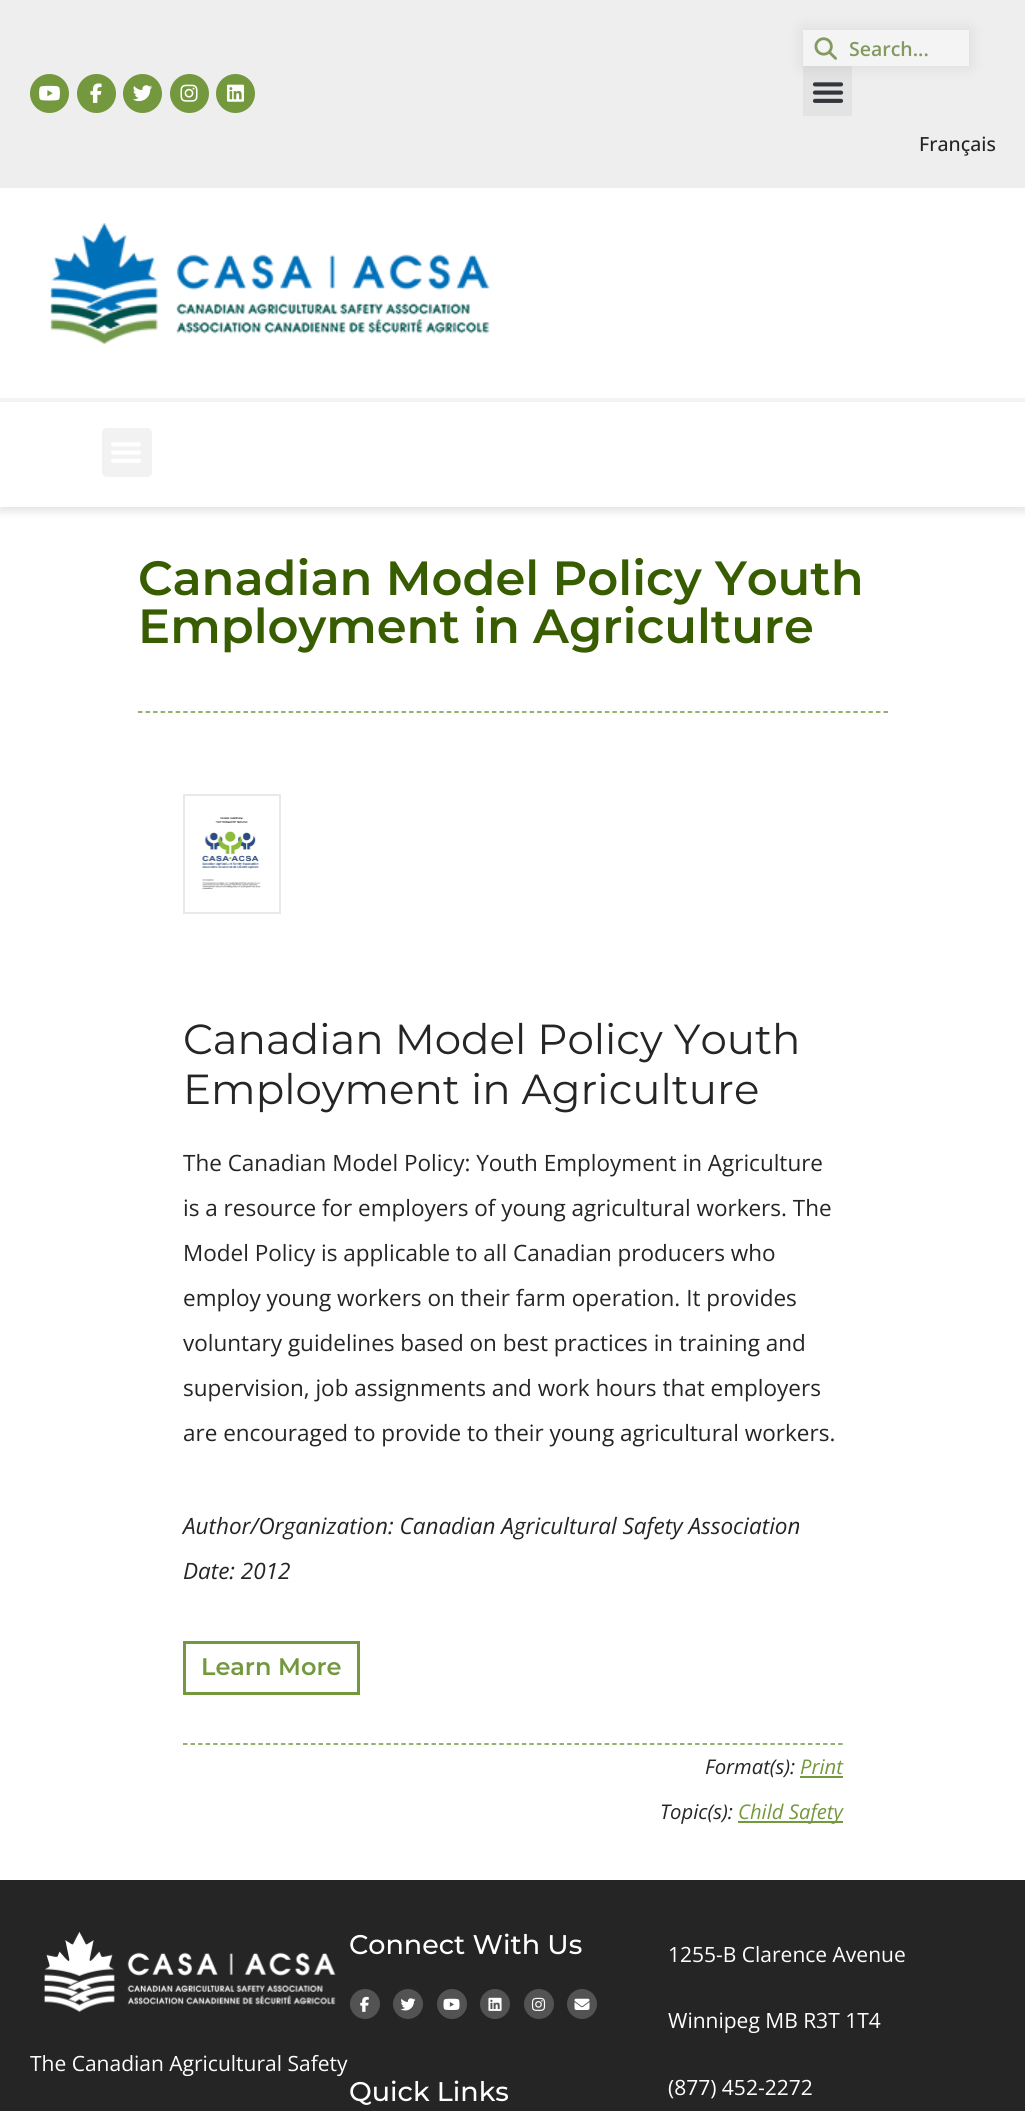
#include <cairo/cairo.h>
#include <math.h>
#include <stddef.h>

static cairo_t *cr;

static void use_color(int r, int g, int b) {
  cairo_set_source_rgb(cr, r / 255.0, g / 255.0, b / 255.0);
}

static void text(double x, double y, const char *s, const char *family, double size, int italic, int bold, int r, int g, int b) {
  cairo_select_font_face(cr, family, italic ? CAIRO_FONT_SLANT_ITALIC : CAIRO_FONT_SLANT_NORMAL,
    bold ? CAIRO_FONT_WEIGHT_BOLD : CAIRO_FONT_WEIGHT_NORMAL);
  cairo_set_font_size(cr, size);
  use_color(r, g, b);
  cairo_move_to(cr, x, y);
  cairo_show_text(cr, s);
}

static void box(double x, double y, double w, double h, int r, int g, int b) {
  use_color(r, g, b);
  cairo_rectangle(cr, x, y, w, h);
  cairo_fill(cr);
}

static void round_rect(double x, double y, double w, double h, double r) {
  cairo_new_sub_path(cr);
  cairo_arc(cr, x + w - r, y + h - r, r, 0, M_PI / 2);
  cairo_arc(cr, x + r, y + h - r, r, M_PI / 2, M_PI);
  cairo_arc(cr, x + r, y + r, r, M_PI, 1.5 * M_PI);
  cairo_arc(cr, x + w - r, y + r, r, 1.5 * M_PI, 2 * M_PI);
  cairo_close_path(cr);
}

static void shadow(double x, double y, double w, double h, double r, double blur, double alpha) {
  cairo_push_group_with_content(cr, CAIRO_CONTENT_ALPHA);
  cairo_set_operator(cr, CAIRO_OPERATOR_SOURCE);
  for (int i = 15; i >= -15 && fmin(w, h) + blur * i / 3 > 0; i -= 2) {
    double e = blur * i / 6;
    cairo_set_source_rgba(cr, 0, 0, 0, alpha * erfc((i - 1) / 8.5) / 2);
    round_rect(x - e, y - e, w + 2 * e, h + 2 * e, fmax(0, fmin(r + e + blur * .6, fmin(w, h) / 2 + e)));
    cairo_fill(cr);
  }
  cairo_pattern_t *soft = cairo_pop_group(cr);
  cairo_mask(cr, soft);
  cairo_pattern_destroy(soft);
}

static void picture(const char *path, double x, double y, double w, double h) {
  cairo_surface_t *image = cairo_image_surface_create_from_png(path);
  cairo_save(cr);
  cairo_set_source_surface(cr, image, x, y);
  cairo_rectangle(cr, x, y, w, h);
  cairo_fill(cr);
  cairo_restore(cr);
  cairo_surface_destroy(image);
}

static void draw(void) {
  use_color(255, 255, 255);
  cairo_paint(cr);
  box(0, 0, 1025, 188, 238, 238, 238);
  use_color(116, 152, 62);
  cairo_arc(cr, 49.5, 93.5, 19.5, 0, 2 * M_PI);
  cairo_fill(cr);
  picture("img_01.png", 39, 85, 21, 16);
  cairo_arc(cr, 96.5, 93.5, 19.5, 0, 2 * M_PI);
  cairo_fill(cr);
  picture("img_02.png", 90, 83, 12, 20);
  cairo_arc(cr, 142.5, 93.5, 19.5, 0, 2 * M_PI);
  cairo_fill(cr);
  picture("img_03.png", 133, 85, 20, 17);
  cairo_arc(cr, 189.5, 93.5, 19.5, 0, 2 * M_PI);
  cairo_fill(cr);
  picture("img_04.png", 180, 84, 18, 18);
  cairo_arc(cr, 235.5, 93.5, 19.5, 0, 2 * M_PI);
  cairo_fill(cr);
  picture("img_05.png", 226, 84, 19, 18);
  use_color(0, 0, 0);
  shadow(803, 30, 166, 36, 0, 7.5, 0.1);
  box(803, 30, 166, 36, 244, 244, 244);
  picture("img_06.png", 814, 37, 23, 23);
  cairo_set_source_rgba(cr, 0, 0, 0, 0.05);
  cairo_rectangle(cr, 803, 66, 49, 50);
  cairo_fill(cr);
  picture("img_07.png", 812, 82, 32, 21);
  box(0, 398, 1025, 4, 244, 244, 244);
  picture("img_08.png", 50, 223, 440, 121);
  use_color(0, 0, 0);
  shadow(0, 407, 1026, 105, 0, 4, 0.1);
  box(0, 402, 1025, 105, 255, 255, 255);
  use_color(242, 242, 242);
  round_rect(102, 428, 50, 49, 5);
  cairo_fill(cr);
  picture("img_09.png", 111, 442, 30, 21);
  cairo_new_path(cr);
  cairo_move_to(cr, 138, 712);
  cairo_line_to(cr, 888, 712);
  use_color(116, 152, 62);
  cairo_set_line_width(cr, 1.5);
  cairo_set_dash(cr, (double[]){4.5, 3.03}, 2, 0);
  cairo_stroke(cr);
  cairo_rectangle(cr, 184, 795, 96, 118);
  use_color(233, 233, 233);
  cairo_set_line_width(cr, 2);
  cairo_set_dash(cr, NULL, 0, 0);
  cairo_stroke(cr);
  picture("img_10.png", 202, 817, 59, 73);
  cairo_rectangle(cr, 184.5, 1642.5, 174, 51);
  use_color(116, 152, 62);
  cairo_set_line_width(cr, 3);
  cairo_stroke(cr);
  cairo_new_path(cr);
  cairo_move_to(cr, 183, 1744);
  cairo_line_to(cr, 843, 1744);
  cairo_set_line_width(cr, 1.5);
  cairo_set_dash(cr, (double[]){4.5, 3.03}, 2, 0);
  cairo_stroke(cr);
  box(800, 1776, 43, 2, 116, 152, 62);
  box(738, 1821, 105, 2, 116, 152, 62);
  box(0, 1880, 1025, 231, 37, 37, 37);
  picture("img_11.png", 44, 1932, 292, 80);
  use_color(83, 83, 83);
  cairo_arc(cr, 365, 2004, 15, 0, 2 * M_PI);
  cairo_fill(cr);
  picture("img_12.png", 360, 1996, 9, 16);
  cairo_arc(cr, 408, 2004, 15, 0, 2 * M_PI);
  cairo_fill(cr);
  picture("img_13.png", 400, 1998, 16, 13);
  cairo_arc(cr, 452, 2004, 15, 0, 2 * M_PI);
  cairo_fill(cr);
  picture("img_14.png", 443, 1998, 17, 12);
  cairo_arc(cr, 495, 2004, 15, 0, 2 * M_PI);
  cairo_fill(cr);
  picture("img_15.png", 488, 1997, 14, 14);
  cairo_arc(cr, 539, 2004, 15, 0, 2 * M_PI);
  cairo_fill(cr);
  picture("img_16.png", 531, 1997, 15, 14);
  cairo_arc(cr, 582, 2004, 15, 0, 2 * M_PI);
  cairo_fill(cr);
  picture("img_17.png", 574, 1998, 16, 12);
  text(849, 56, "Search...", "Open Sans SemiBold", 19.5, 0, 0, 131, 153, 98);
  text(919, 151, "Français", "Open Sans Medium", 19.5, 0, 0, 37, 37, 37);
  text(138, 595, "Canadian Model Policy Youth", "Montserrat SemiBold", 48, 0, 0, 56, 93, 0);
  text(138, 643, "Employment in Agriculture", "Montserrat SemiBold", 48, 0, 0, 56, 93, 0);
  text(183, 1054, "Canadian Model Policy Youth", "Montserrat", 42, 0, 0, 37, 37, 37);
  text(183, 1104, "Employment in Agriculture", "Montserrat", 42, 0, 0, 37, 37, 37);
  text(183, 1171, "The Canadian Model Policy: Youth Employment in Agriculture", "Open Sans", 22.5, 0, 0, 37, 37, 37);
  text(183, 1216, "is a resource for employers of young agricultural workers. The", "Open Sans", 22.5, 0, 0, 37, 37, 37);
  text(183, 1261, "Model Policy is applicable to all Canadian producers who", "Open Sans", 22.5, 0, 0, 37, 37, 37);
  text(183, 1306, "employ young workers on their farm operation. It provides", "Open Sans", 22.5, 0, 0, 37, 37, 37);
  text(183, 1351, "voluntary guidelines based on best practices in training and", "Open Sans", 22.5, 0, 0, 37, 37, 37);
  text(183, 1396, "supervision, job assignments and work hours that employers", "Open Sans", 22.5, 0, 0, 37, 37, 37);
  text(183, 1441, "are encouraged to provide to their young agricultural workers.", "Open Sans", 22.5, 0, 0, 37, 37, 37);
  text(183, 1534, "Author/Organization: Canadian Agricultural Safety Association", "Open Sans", 22.5, 1, 0, 37, 37, 37);
  text(183, 1579, "Date: 2012", "Open Sans", 22.5, 1, 0, 37, 37, 37);
  text(201, 1675, "Learn More", "Montserrat SemiBold", 24, 0, 0, 116, 152, 62);
  text(705, 1774, "Format(s):", "Open Sans", 20.25, 1, 0, 37, 37, 37);
  text(800, 1774, "Print", "Open Sans", 20.25, 1, 0, 116, 152, 62);
  text(660, 1819, "Topic(s):", "Open Sans", 20.25, 1, 0, 37, 37, 37);
  text(738, 1819, "Child Safety", "Open Sans", 20.25, 1, 0, 116, 152, 62);
  text(30, 2071, "The Canadian Agricultural Safety", "Open Sans", 21, 0, 0, 255, 255, 255);
  text(349, 1954, "Connect With Us", "Montserrat Medium", 27, 0, 0, 255, 255, 255);
  text(349, 2101, "Quick Links", "Montserrat Medium", 27, 0, 0, 255, 255, 255);
  text(668, 1962, "1255-B Clarence Avenue", "Open Sans", 21, 0, 0, 255, 255, 255);
  text(668, 2028, "Winnipeg MB R3T 1T4", "Open Sans", 21, 0, 0, 255, 255, 255);
  text(668, 2095, "(877) 452-2272", "Open Sans", 21, 0, 0, 255, 255, 255);
}

int main(void) {
  cairo_surface_t *surface = cairo_image_surface_create(CAIRO_FORMAT_RGB24, 1025, 2111);
  cr = cairo_create(surface);
  cairo_font_options_t *options = cairo_font_options_create();
  cairo_font_options_set_hint_metrics(options, CAIRO_HINT_METRICS_OFF);
  cairo_font_options_set_hint_style(options, CAIRO_HINT_STYLE_NONE);
  cairo_set_font_options(cr, options);
  cairo_set_miter_limit(cr, 4);
  draw();
  cairo_surface_write_to_png(surface, "out.png");
  cairo_font_options_destroy(options);
  cairo_destroy(cr);
  cairo_surface_destroy(surface);
  return 0;
}
